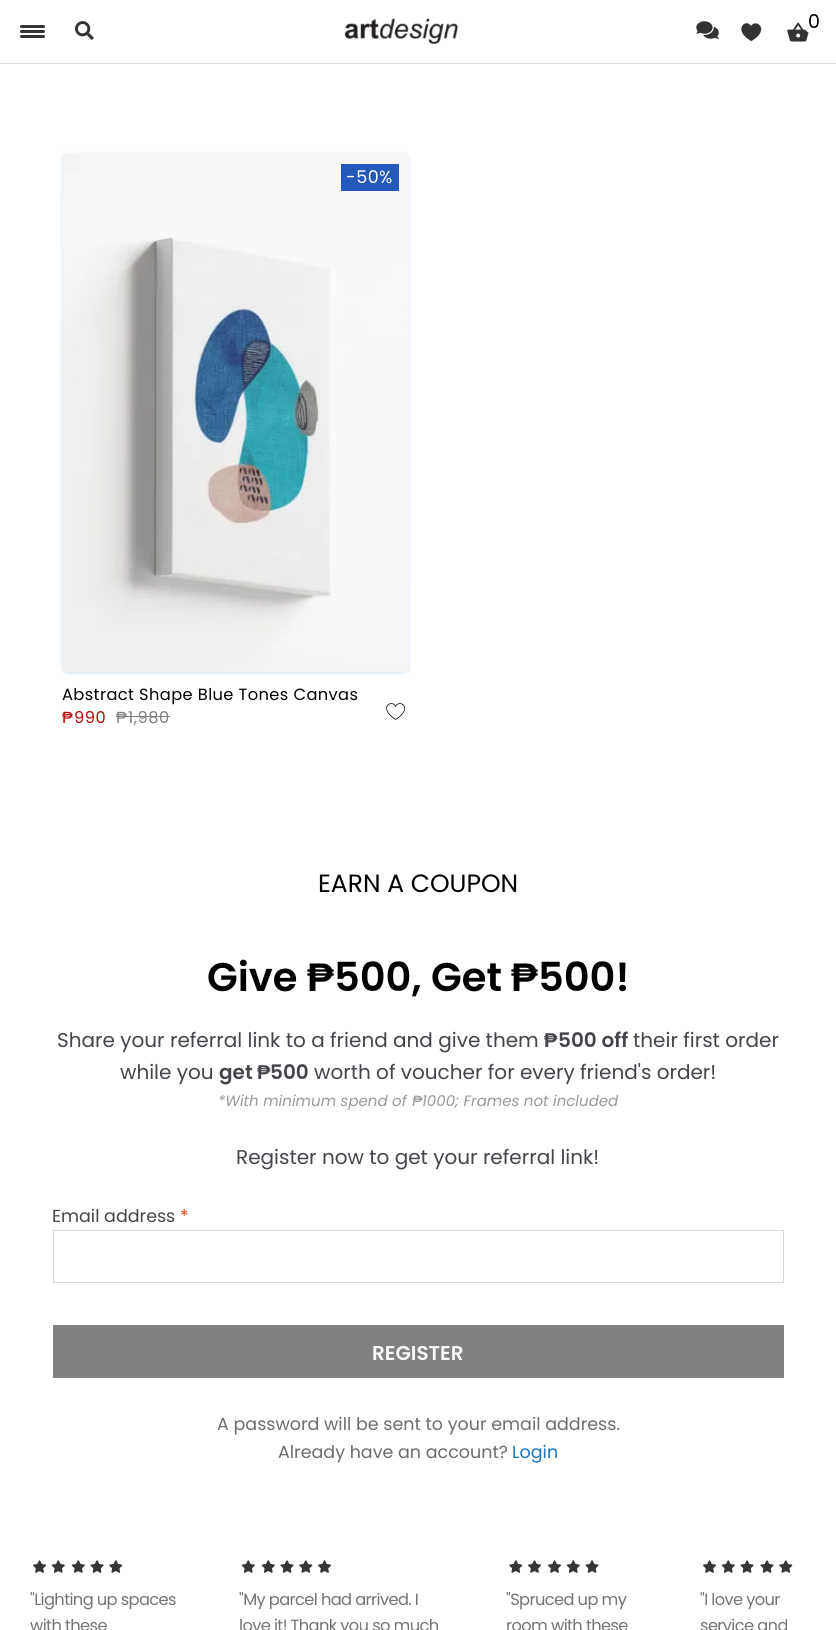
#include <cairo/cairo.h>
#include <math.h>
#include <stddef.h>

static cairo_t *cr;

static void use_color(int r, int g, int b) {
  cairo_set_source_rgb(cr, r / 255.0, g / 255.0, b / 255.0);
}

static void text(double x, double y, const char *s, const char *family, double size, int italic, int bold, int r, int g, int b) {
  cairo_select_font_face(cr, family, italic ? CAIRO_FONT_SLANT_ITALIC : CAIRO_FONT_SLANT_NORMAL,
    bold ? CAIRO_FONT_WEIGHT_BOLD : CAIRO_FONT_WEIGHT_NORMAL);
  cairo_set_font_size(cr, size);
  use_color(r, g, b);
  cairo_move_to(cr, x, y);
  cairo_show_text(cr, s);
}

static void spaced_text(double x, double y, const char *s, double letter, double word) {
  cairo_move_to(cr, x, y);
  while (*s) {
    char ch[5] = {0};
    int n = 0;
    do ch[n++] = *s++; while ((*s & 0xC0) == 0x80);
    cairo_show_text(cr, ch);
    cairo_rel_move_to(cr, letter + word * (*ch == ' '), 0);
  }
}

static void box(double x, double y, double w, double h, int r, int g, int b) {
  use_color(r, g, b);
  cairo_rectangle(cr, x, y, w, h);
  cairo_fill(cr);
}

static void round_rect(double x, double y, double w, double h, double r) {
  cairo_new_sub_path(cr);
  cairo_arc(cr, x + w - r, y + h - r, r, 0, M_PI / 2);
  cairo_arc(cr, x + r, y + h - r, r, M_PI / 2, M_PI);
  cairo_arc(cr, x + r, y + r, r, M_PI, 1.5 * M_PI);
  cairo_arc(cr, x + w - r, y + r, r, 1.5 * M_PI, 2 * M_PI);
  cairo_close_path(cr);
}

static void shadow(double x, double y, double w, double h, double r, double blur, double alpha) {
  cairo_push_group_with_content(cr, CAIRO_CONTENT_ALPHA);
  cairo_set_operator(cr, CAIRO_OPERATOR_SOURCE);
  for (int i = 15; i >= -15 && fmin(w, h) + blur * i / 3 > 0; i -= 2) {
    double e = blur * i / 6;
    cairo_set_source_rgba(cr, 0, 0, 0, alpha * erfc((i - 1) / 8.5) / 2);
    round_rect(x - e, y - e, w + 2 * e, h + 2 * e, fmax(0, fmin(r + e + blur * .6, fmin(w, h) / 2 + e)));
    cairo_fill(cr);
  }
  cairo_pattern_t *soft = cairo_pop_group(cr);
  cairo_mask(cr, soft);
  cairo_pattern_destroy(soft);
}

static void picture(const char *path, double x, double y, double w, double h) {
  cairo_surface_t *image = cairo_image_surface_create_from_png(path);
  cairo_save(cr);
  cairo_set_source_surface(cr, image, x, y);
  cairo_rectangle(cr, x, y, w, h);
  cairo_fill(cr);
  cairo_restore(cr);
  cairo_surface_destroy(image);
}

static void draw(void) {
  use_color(255, 255, 255);
  cairo_paint(cr);
  picture("img_01.png", 75, 21, 19, 19);
  picture("img_02.png", 344, 18, 114, 26);
  picture("img_03.png", 696, 21, 23, 18);
  use_color(51, 51, 51);
  cairo_new_path(cr);
  cairo_move_to(cr, 751, 41);
  cairo_curve_to(cr, 732, 30, 746, 17.5, 751, 26);
  cairo_curve_to(cr, 756, 18, 771, 29.5, 751.5, 41);
  cairo_close_path(cr);
  cairo_fill(cr);
  picture("img_04.png", 787, 22, 22, 20);
  use_color(255, 255, 255);
  round_rect(803, 11, 22, 23, 11);
  cairo_fill(cr);
  box(0, 63, 836, 1, 220, 222, 225);
  use_color(51, 51, 51);
  round_rect(20, 25, 25, 3, 1.5);
  cairo_fill(cr);
  round_rect(20, 30, 25, 3, 1.5);
  cairo_fill(cr);
  round_rect(20, 35, 25, 3, 1.5);
  cairo_fill(cr);
  use_color(30, 115, 190);
  shadow(66, 158, 339, 511, 0, 3, 1);
  picture("img_05.png", 62, 153, 347, 519);
  box(341, 164, 58, 27, 36, 89, 188);
  box(116, 716, 12, 1, 128, 128, 128);
  box(128, 716, 42, 1, 128, 128, 128);
  picture("img_06.png", 386, 703, 19, 17);
  cairo_rectangle(cr, 53.5, 1230.5, 730, 52);
  use_color(217, 217, 217);
  cairo_set_line_width(cr, 1);
  cairo_stroke(cr);
  box(53, 1325, 731, 53, 128, 128, 128);
  picture("img_07.png", 33, 1560, 13, 13);
  picture("img_08.png", 51, 1560, 14, 13);
  picture("img_08.png", 71, 1560, 14, 13);
  picture("img_09.png", 90, 1560, 14, 13);
  picture("img_10.png", 109, 1560, 14, 13);
  picture("img_08.png", 241, 1560, 14, 13);
  picture("img_08.png", 261, 1560, 14, 13);
  picture("img_09.png", 280, 1560, 14, 13);
  picture("img_10.png", 299, 1560, 14, 13);
  picture("img_07.png", 318, 1560, 13, 13);
  picture("img_10.png", 509, 1560, 14, 13);
  picture("img_07.png", 528, 1560, 13, 13);
  picture("img_07.png", 548, 1560, 13, 13);
  picture("img_08.png", 566, 1560, 14, 13);
  picture("img_09.png", 585, 1560, 14, 13);
  picture("img_07.png", 703, 1560, 13, 13);
  picture("img_08.png", 721, 1560, 14, 13);
  picture("img_09.png", 740, 1560, 14, 13);
  picture("img_09.png", 760, 1560, 14, 13);
  picture("img_10.png", 779, 1560, 14, 13);
  text(808, 28, "0", "Poppins", 19, 0, 0, 0, 0, 0);
  cairo_set_font_size(cr, 17.5);
  use_color(255, 255, 255);
  spaced_text(346, 183, "-50%", 0.5, 0);
  cairo_select_font_face(cr, "Liberation Sans", CAIRO_FONT_SLANT_NORMAL, CAIRO_FONT_WEIGHT_NORMAL);
  cairo_set_font_size(cr, 16.25);
  use_color(187, 7, 7);
  spaced_text(62, 723, "₱", 0.5, 0);
  cairo_select_font_face(cr, "Poppins", CAIRO_FONT_SLANT_NORMAL, CAIRO_FONT_WEIGHT_NORMAL);
  spaced_text(74, 723, "990", 0.5, 0);
  cairo_select_font_face(cr, "Liberation Sans", CAIRO_FONT_SLANT_NORMAL, CAIRO_FONT_WEIGHT_NORMAL);
  use_color(128, 128, 128);
  spaced_text(116, 723, "₱", 0.5, 0);
  cairo_select_font_face(cr, "Poppins", CAIRO_FONT_SLANT_NORMAL, CAIRO_FONT_WEIGHT_NORMAL);
  spaced_text(128, 723, "1,980", 0.5, 0);
  use_color(0, 0, 0);
  spaced_text(62, 700, "Abstract Shape Blue Tones Canvas", 0.4, 0);
  text(318, 892, "EARN A COUPON", "Poppins", 25, 0, 0, 0, 0, 0);
  text(207, 991, "Give", "Poppins SemiBold", 40, 0, 0, 0, 0, 0);
  text(307, 991, "₱", "Liberation Sans", 40, 0, 1, 0, 0, 0);
  text(334, 991, "500, Get", "Poppins SemiBold", 40, 0, 0, 0, 0, 0);
  text(511, 991, "₱", "Liberation Sans", 40, 0, 1, 0, 0, 0);
  text(538, 991, "500!", "Poppins SemiBold", 40, 0, 0, 0, 0, 0);
  text(57, 1047, "Share your referral link to a friend and give them", "Poppins", 20, 0, 0, 67, 69, 75);
  text(544, 1047, "₱", "Liberation Sans", 20, 0, 1, 67, 69, 75);
  text(558, 1047, "500 off", "Poppins SemiBold", 20, 0, 0, 67, 69, 75);
  text(633, 1047, "their first order", "Poppins", 20, 0, 0, 67, 69, 75);
  text(120, 1079, "while you", "Poppins", 20, 0, 0, 67, 69, 75);
  text(219, 1079, "get", "Poppins SemiBold", 20, 0, 0, 67, 69, 75);
  text(257, 1079, "₱", "Liberation Sans", 20, 0, 1, 67, 69, 75);
  text(270, 1079, "500", "Poppins SemiBold", 20, 0, 0, 67, 69, 75);
  text(314, 1079, "worth of voucher for every friend's order!", "Poppins", 20, 0, 0, 67, 69, 75);
  text(218, 1106, "*With minimum spend of", "Poppins", 15, 1, 0, 153, 153, 153);
  text(412, 1106, "₱", "Liberation Sans", 15, 1, 0, 153, 153, 153);
  text(422, 1106, "1000; Frames not included", "Poppins", 15, 1, 0, 153, 153, 153);
  text(236, 1164, "Register now to get your referral link!", "Poppins", 20, 0, 0, 67, 69, 75);
  text(52, 1222, "Email address", "Poppins", 17.5, 0, 0, 67, 69, 75);
  text(180, 1222, "*", "Poppins", 17.5, 0, 0, 226, 64, 28);
  text(372, 1360, "REGISTER", "Poppins SemiBold", 20, 0, 0, 248, 248, 248);
  text(217, 1430, "A password will be sent to your email address.", "Poppins", 17.5, 0, 0, 109, 109, 109);
  text(278, 1458, "Already have an account?", "Poppins", 17.5, 0, 0, 109, 109, 109);
  text(512, 1458, "Login", "Poppins", 17.5, 0, 0, 30, 115, 190);
  cairo_set_font_size(cr, 16.25);
  use_color(116, 116, 116);
  spaced_text(30, 1605, "\"Lighting up spaces", -0.6, 0);
  spaced_text(30, 1631, "with these", -0.6, 0);
  spaced_text(239, 1605, "\"My parcel had arrived. I", -0.6, 0);
  spaced_text(239, 1631, "love it! Thank you so much", -0.6, 0);
  spaced_text(506, 1605, "\"Spruced up my", -0.6, 0);
  spaced_text(506, 1631, "room with these", -0.6, 0);
  spaced_text(700, 1605, "\"I love your", -0.6, 0);
  spaced_text(700, 1631, "service and", -0.6, 0);
}

int main(void) {
  cairo_surface_t *surface = cairo_image_surface_create(CAIRO_FORMAT_RGB24, 836, 1630);
  cr = cairo_create(surface);
  cairo_font_options_t *options = cairo_font_options_create();
  cairo_font_options_set_hint_metrics(options, CAIRO_HINT_METRICS_OFF);
  cairo_font_options_set_hint_style(options, CAIRO_HINT_STYLE_NONE);
  cairo_set_font_options(cr, options);
  cairo_set_miter_limit(cr, 4);
  draw();
  cairo_surface_write_to_png(surface, "out.png");
  cairo_font_options_destroy(options);
  cairo_destroy(cr);
  cairo_surface_destroy(surface);
  return 0;
}
